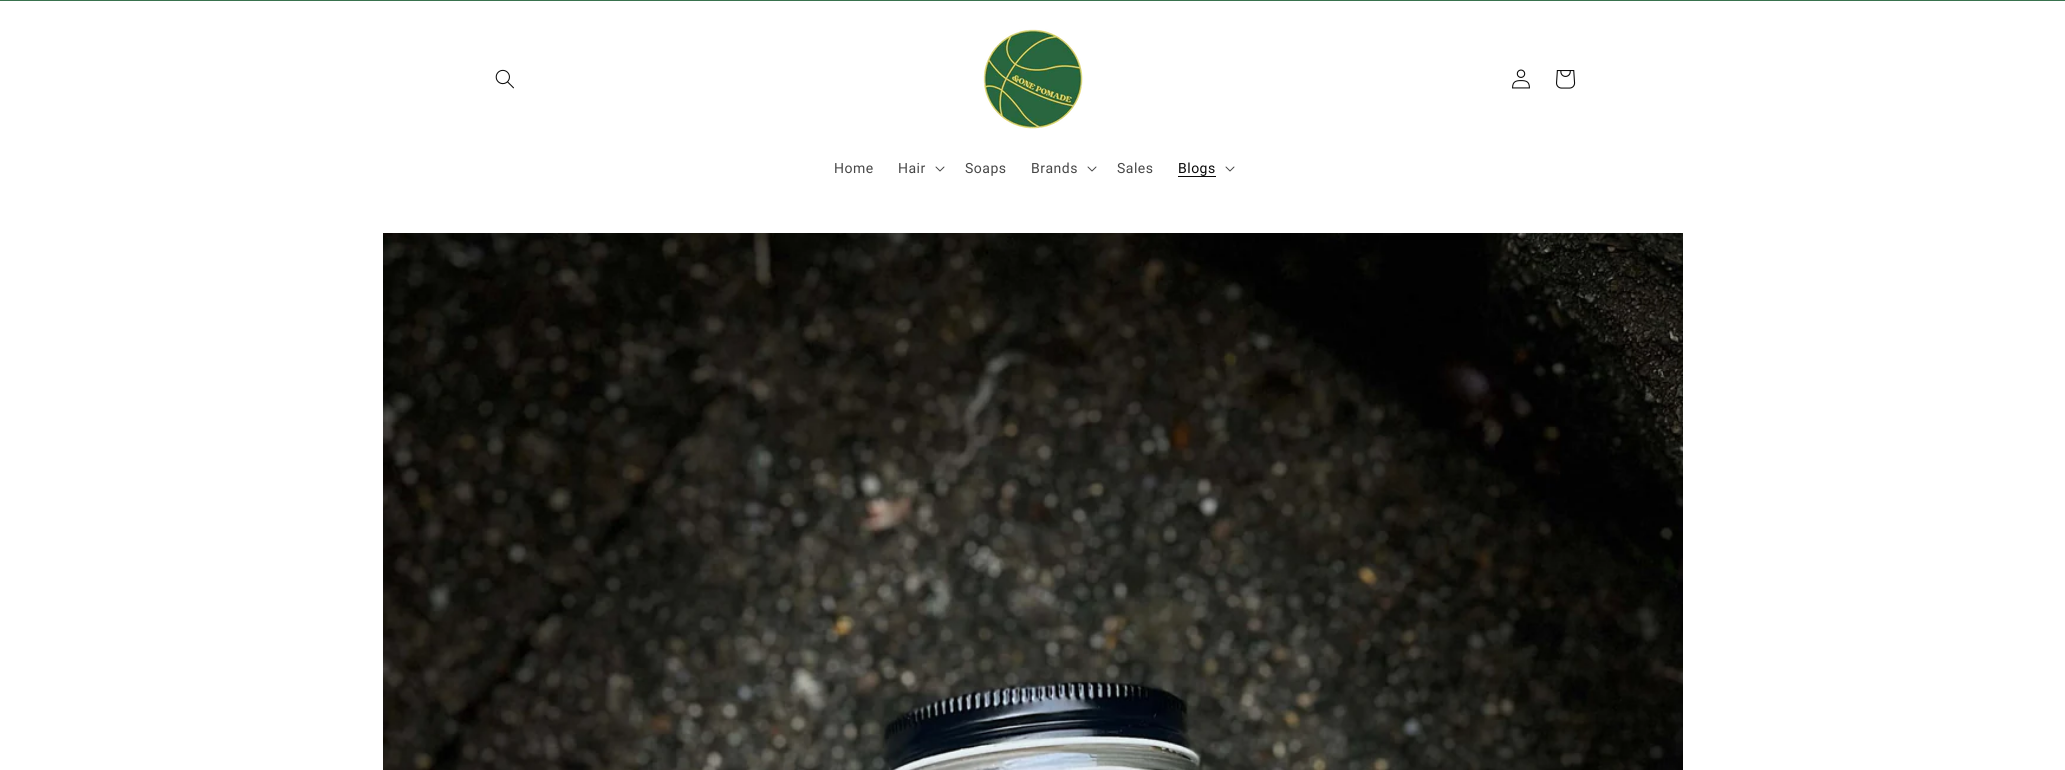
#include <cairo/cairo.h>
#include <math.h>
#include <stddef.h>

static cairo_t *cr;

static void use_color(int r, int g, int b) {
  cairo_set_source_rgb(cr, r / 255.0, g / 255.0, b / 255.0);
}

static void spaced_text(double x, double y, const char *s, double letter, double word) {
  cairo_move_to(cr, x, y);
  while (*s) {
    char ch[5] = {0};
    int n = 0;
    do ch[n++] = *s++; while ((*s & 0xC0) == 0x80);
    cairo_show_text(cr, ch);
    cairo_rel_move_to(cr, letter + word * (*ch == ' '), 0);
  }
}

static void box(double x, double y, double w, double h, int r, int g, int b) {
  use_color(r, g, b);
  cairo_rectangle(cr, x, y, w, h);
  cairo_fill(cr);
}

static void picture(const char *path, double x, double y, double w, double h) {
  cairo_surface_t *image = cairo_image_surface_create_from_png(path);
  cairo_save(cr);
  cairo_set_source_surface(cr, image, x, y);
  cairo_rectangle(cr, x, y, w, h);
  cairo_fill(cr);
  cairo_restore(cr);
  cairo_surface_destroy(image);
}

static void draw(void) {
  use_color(255, 255, 255);
  cairo_paint(cr);
  box(0, 0, 2065, 1, 57, 114, 78);
  picture("img_01.png", 495, 69, 19, 20);
  picture("img_02.png", 983, 29, 100, 100);
  picture("img_03.png", 1512, 69, 18, 20);
  picture("img_04.png", 1556, 70, 20, 19);
  picture("img_05.png", 935, 166, 10, 6);
  picture("img_05.png", 1087, 166, 10, 6);
  box(1178, 176, 38, 1, 10, 10, 10);
  picture("img_05.png", 1225, 166, 10, 6);
  picture("img_06.png", 383, 233, 1300, 537);
  cairo_select_font_face(cr, "Roboto", CAIRO_FONT_SLANT_NORMAL, CAIRO_FONT_WEIGHT_NORMAL);
  cairo_set_font_size(cr, 14);
  use_color(71, 71, 71);
  spaced_text(834, 173, "Home", 0.5, 0);
  spaced_text(898, 173, "Hair", 0.5, 0);
  spaced_text(965, 173, "Soaps", 0.5, 0);
  spaced_text(1031, 173, "Brands", 0.5, 0);
  spaced_text(1117, 173, "Sales", 0.5, 0);
  use_color(10, 10, 10);
  spaced_text(1178, 173, "Blogs", 0.5, 0);
}

int main(void) {
  cairo_surface_t *surface = cairo_image_surface_create(CAIRO_FORMAT_RGB24, 2065, 770);
  cr = cairo_create(surface);
  cairo_font_options_t *options = cairo_font_options_create();
  cairo_font_options_set_hint_metrics(options, CAIRO_HINT_METRICS_OFF);
  cairo_font_options_set_hint_style(options, CAIRO_HINT_STYLE_NONE);
  cairo_set_font_options(cr, options);
  cairo_set_miter_limit(cr, 4);
  draw();
  cairo_surface_write_to_png(surface, "out.png");
  cairo_font_options_destroy(options);
  cairo_destroy(cr);
  cairo_surface_destroy(surface);
  return 0;
}
